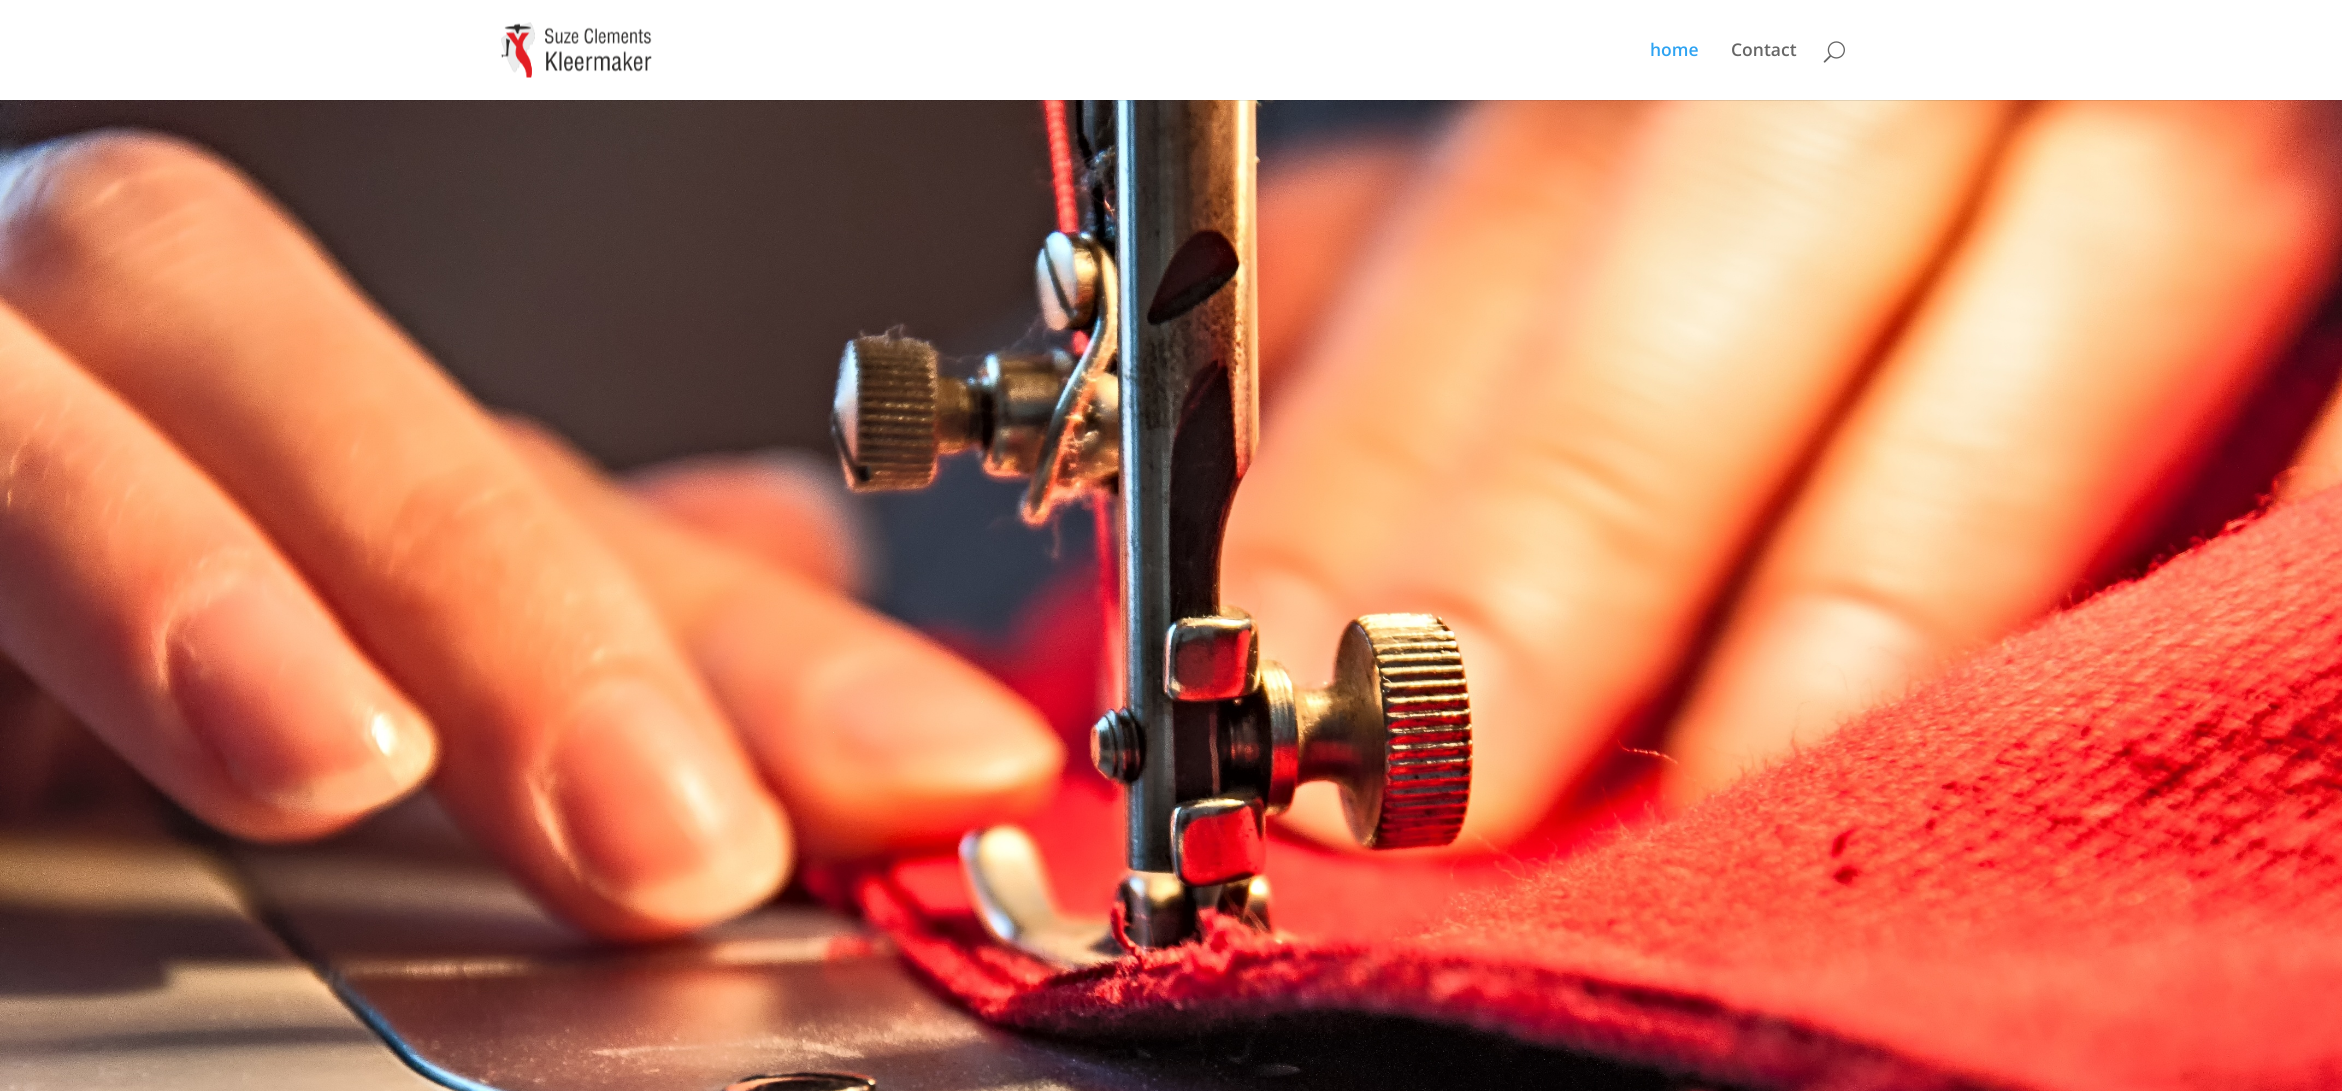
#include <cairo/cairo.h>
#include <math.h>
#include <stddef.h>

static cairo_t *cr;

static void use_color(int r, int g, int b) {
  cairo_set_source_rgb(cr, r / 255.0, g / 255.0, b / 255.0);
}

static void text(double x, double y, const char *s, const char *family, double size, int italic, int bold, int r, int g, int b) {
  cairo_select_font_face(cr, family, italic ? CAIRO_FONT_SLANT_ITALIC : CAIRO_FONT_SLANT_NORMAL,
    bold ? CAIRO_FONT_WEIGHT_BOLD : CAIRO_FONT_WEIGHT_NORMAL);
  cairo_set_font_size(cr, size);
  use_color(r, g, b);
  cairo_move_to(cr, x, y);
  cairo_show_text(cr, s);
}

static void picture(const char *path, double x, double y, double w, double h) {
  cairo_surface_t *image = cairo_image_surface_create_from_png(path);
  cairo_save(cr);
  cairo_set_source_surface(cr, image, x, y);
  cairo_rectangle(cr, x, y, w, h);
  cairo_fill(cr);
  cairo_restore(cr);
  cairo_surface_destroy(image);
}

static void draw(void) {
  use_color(255, 255, 255);
  cairo_paint(cr);
  picture("img_03.png", 0, 100, 2342, 991);
  cairo_set_source_rgba(cr, 0, 0, 0, 0.1);
  cairo_new_path(cr);
  cairo_move_to(cr, 0, 100);
  cairo_line_to(cr, 0, 101);
  cairo_line_to(cr, 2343, 101);
  cairo_line_to(cr, 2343, 1);
  cairo_line_to(cr, 2342, 1);
  cairo_line_to(cr, 2342, 100);
  cairo_close_path(cr);
  cairo_fill(cr);
  picture("img_01.png", 501, 22, 151, 56);
  picture("img_02.png", 1823, 41, 22, 22);
  text(1650, 56, "home", "Open Sans SemiBold", 17.5, 0, 0, 46, 163, 242);
  text(1731, 56, "Contact", "Open Sans SemiBold", 17.5, 0, 0, 102, 102, 102);
}

int main(void) {
  cairo_surface_t *surface = cairo_image_surface_create(CAIRO_FORMAT_RGB24, 2342, 1091);
  cr = cairo_create(surface);
  cairo_font_options_t *options = cairo_font_options_create();
  cairo_font_options_set_hint_metrics(options, CAIRO_HINT_METRICS_OFF);
  cairo_font_options_set_hint_style(options, CAIRO_HINT_STYLE_NONE);
  cairo_set_font_options(cr, options);
  cairo_set_miter_limit(cr, 4);
  draw();
  cairo_surface_write_to_png(surface, "out.png");
  cairo_font_options_destroy(options);
  cairo_destroy(cr);
  cairo_surface_destroy(surface);
  return 0;
}
